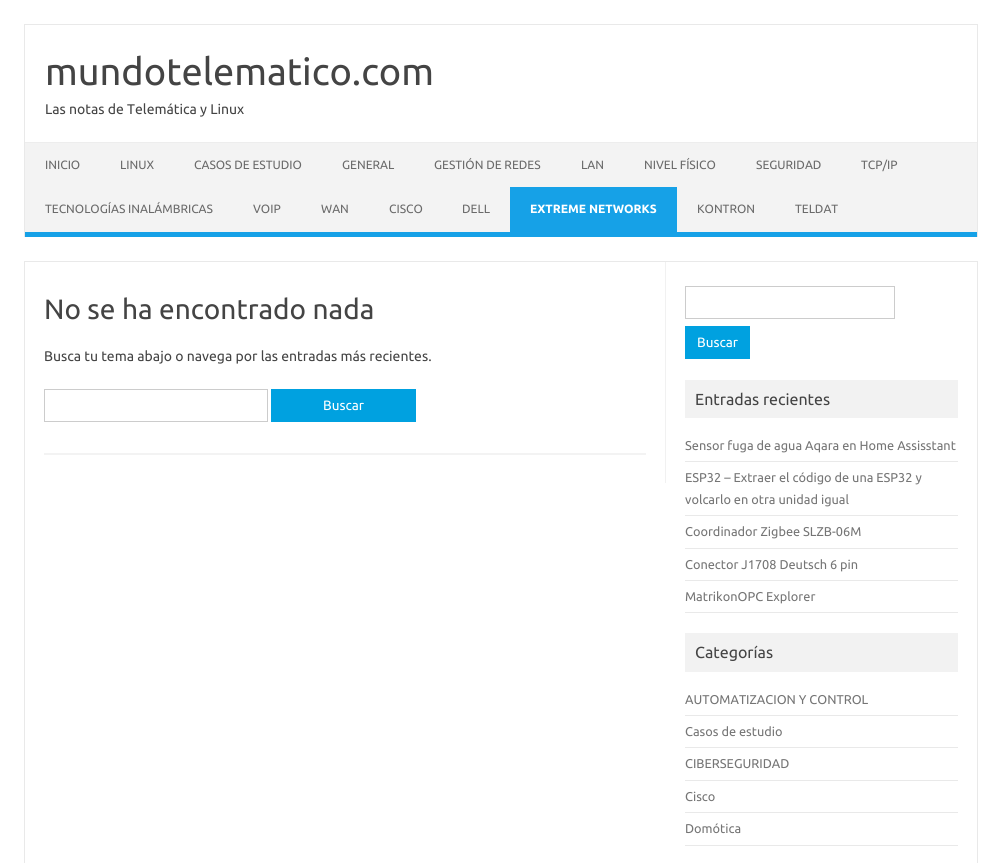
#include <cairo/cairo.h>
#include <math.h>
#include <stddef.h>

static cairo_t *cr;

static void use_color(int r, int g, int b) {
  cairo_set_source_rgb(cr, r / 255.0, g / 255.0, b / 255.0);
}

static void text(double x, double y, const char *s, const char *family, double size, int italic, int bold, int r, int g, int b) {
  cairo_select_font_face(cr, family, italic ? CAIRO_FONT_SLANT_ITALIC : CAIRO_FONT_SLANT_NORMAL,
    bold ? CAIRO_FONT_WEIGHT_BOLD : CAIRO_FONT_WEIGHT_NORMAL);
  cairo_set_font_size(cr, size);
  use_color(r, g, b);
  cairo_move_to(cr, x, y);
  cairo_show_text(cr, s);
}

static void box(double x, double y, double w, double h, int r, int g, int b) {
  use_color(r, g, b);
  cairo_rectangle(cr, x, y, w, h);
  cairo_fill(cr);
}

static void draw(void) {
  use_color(255, 255, 255);
  cairo_paint(cr);
  box(24, 24, 954, 1, 233, 233, 233);
  box(977, 24, 1, 213, 233, 233, 233);
  box(24, 24, 1, 213, 233, 233, 233);
  box(25, 143, 952, 89, 243, 243, 243);
  box(25, 142, 952, 1, 237, 237, 237);
  box(25, 232, 952, 5, 22, 161, 231);
  box(510, 187, 167, 45, 22, 161, 231);
  cairo_rectangle(cr, 24.5, 261.5, 953, 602);
  use_color(233, 233, 233);
  cairo_set_line_width(cr, 1);
  cairo_stroke(cr);
  box(665, 262, 1, 221, 241, 241, 241);
  box(44, 453, 602, 2, 243, 243, 243);
  cairo_rectangle(cr, 44.5, 389.5, 223, 32);
  use_color(204, 204, 204);
  cairo_stroke(cr);
  box(271, 389, 145, 33, 0, 161, 224);
  cairo_rectangle(cr, 685.5, 286.5, 209, 32);
  use_color(204, 204, 204);
  cairo_stroke(cr);
  box(685, 326, 65, 33, 0, 161, 224);
  box(685, 380, 273, 38, 242, 242, 242);
  box(685, 461, 273, 1, 233, 233, 233);
  box(685, 515, 273, 1, 233, 233, 233);
  box(685, 548, 273, 1, 233, 233, 233);
  box(685, 580, 273, 1, 233, 233, 233);
  box(685, 612, 273, 1, 233, 233, 233);
  box(685, 633, 273, 39, 242, 242, 242);
  box(685, 715, 273, 1, 233, 233, 233);
  box(685, 747, 273, 1, 233, 233, 233);
  box(685, 780, 273, 1, 233, 233, 233);
  box(685, 812, 273, 1, 233, 233, 233);
  box(685, 845, 273, 1, 233, 233, 233);
  text(45, 85, "mundotelematico.com", "Ubuntu", 38, 0, 0, 68, 68, 68);
  text(45, 114, "Las notas de Telemática y Linux", "Ubuntu", 14, 0, 0, 68, 68, 68);
  text(45, 169, "INICIO", "Ubuntu", 12, 0, 0, 106, 106, 106);
  text(120, 169, "LINUX", "Ubuntu", 12, 0, 0, 106, 106, 106);
  text(194, 169, "CASOS DE ESTUDIO", "Ubuntu", 12, 0, 0, 106, 106, 106);
  text(342, 169, "GENERAL", "Ubuntu", 12, 0, 0, 106, 106, 106);
  text(434, 169, "GESTIÓN DE REDES", "Ubuntu", 12, 0, 0, 106, 106, 106);
  text(581, 169, "LAN", "Ubuntu", 12, 0, 0, 106, 106, 106);
  text(644, 169, "NIVEL FÍSICO", "Ubuntu", 12, 0, 0, 106, 106, 106);
  text(756, 169, "SEGURIDAD", "Ubuntu", 12, 0, 0, 106, 106, 106);
  text(861, 169, "TCP/IP", "Ubuntu", 12, 0, 0, 106, 106, 106);
  text(45, 213, "TECNOLOGÍAS INALÁMBRICAS", "Ubuntu", 12, 0, 0, 106, 106, 106);
  text(253, 213, "VOIP", "Ubuntu", 12, 0, 0, 106, 106, 106);
  text(321, 213, "WAN", "Ubuntu", 12, 0, 0, 106, 106, 106);
  text(389, 213, "CISCO", "Ubuntu", 12, 0, 0, 106, 106, 106);
  text(462, 213, "DELL", "Ubuntu", 12, 0, 0, 106, 106, 106);
  text(530, 213, "EXTREME NETWORKS", "Ubuntu", 12, 0, 1, 255, 255, 255);
  text(697, 213, "KONTRON", "Ubuntu", 12, 0, 0, 106, 106, 106);
  text(795, 213, "TELDAT", "Ubuntu", 12, 0, 0, 106, 106, 106);
  text(44, 319, "No se ha encontrado nada", "Ubuntu", 28, 0, 0, 68, 68, 68);
  text(44, 361, "Busca tu tema abajo o navega por las entradas más recientes.", "Ubuntu", 14, 0, 0, 68, 68, 68);
  text(323, 410, "Buscar", "Ubuntu", 13.5, 0, 0, 255, 255, 255);
  text(697, 347, "Buscar", "Ubuntu", 13.5, 0, 0, 255, 255, 255);
  text(695, 405, "Entradas recientes", "Ubuntu", 16, 0, 0, 68, 68, 68);
  text(685, 450, "Sensor fuga de agua Aqara en Home Assisstant", "Ubuntu", 12.75, 0, 0, 117, 117, 117);
  text(685, 482, "ESP32 – Extraer el código de una ESP32 y", "Ubuntu", 12.75, 0, 0, 117, 117, 117);
  text(685, 504, "volcarlo en otra unidad igual", "Ubuntu", 12.75, 0, 0, 117, 117, 117);
  text(685, 536, "Coordinador Zigbee SLZB-06M", "Ubuntu", 12.75, 0, 0, 117, 117, 117);
  text(685, 569, "Conector J1708 Deutsch 6 pin", "Ubuntu", 12.75, 0, 0, 117, 117, 117);
  text(685, 601, "MatrikonOPC Explorer", "Ubuntu", 12.75, 0, 0, 117, 117, 117);
  text(695, 658, "Categorías", "Ubuntu", 16, 0, 0, 68, 68, 68);
  text(685, 704, "AUTOMATIZACION Y CONTROL", "Ubuntu", 12.75, 0, 0, 117, 117, 117);
  text(685, 736, "Casos de estudio", "Ubuntu", 12.75, 0, 0, 117, 117, 117);
  text(685, 768, "CIBERSEGURIDAD", "Ubuntu", 12.75, 0, 0, 117, 117, 117);
  text(685, 801, "Cisco", "Ubuntu", 12.75, 0, 0, 117, 117, 117);
  text(685, 833, "Domótica", "Ubuntu", 12.75, 0, 0, 117, 117, 117);
}

int main(void) {
  cairo_surface_t *surface = cairo_image_surface_create(CAIRO_FORMAT_RGB24, 1002, 863);
  cr = cairo_create(surface);
  cairo_font_options_t *options = cairo_font_options_create();
  cairo_font_options_set_hint_metrics(options, CAIRO_HINT_METRICS_OFF);
  cairo_font_options_set_hint_style(options, CAIRO_HINT_STYLE_NONE);
  cairo_set_font_options(cr, options);
  cairo_set_miter_limit(cr, 4);
  draw();
  cairo_surface_write_to_png(surface, "out.png");
  cairo_font_options_destroy(options);
  cairo_destroy(cr);
  cairo_surface_destroy(surface);
  return 0;
}
